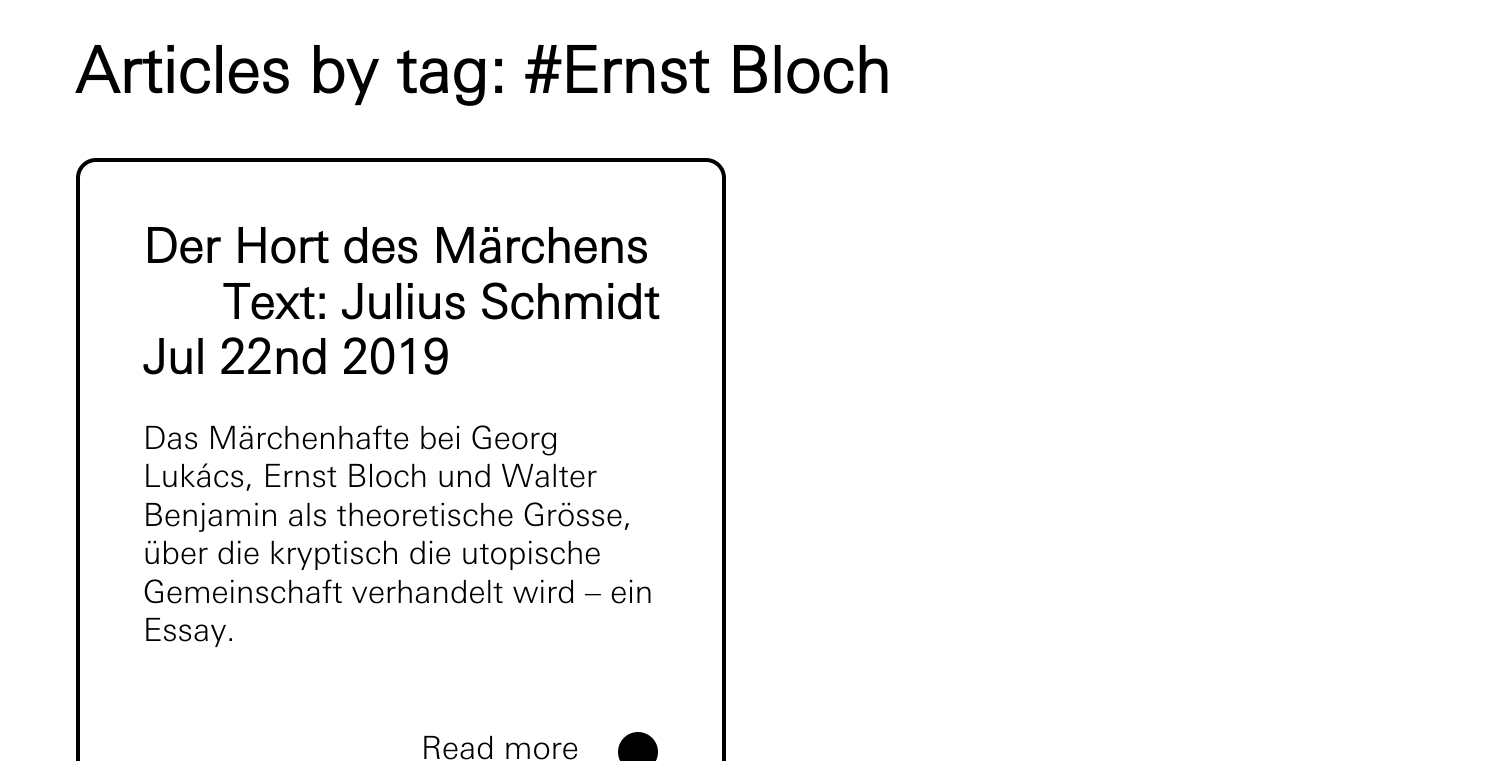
#include <cairo/cairo.h>
#include <math.h>
#include <stddef.h>

static cairo_t *cr;

static void use_color(int r, int g, int b) {
  cairo_set_source_rgb(cr, r / 255.0, g / 255.0, b / 255.0);
}

static void text(double x, double y, const char *s, const char *family, double size, int italic, int bold, int r, int g, int b) {
  cairo_select_font_face(cr, family, italic ? CAIRO_FONT_SLANT_ITALIC : CAIRO_FONT_SLANT_NORMAL,
    bold ? CAIRO_FONT_WEIGHT_BOLD : CAIRO_FONT_WEIGHT_NORMAL);
  cairo_set_font_size(cr, size);
  use_color(r, g, b);
  cairo_move_to(cr, x, y);
  cairo_show_text(cr, s);
}

static void round_rect(double x, double y, double w, double h, double r) {
  cairo_new_sub_path(cr);
  cairo_arc(cr, x + w - r, y + h - r, r, 0, M_PI / 2);
  cairo_arc(cr, x + r, y + h - r, r, M_PI / 2, M_PI);
  cairo_arc(cr, x + r, y + r, r, M_PI, 1.5 * M_PI);
  cairo_arc(cr, x + w - r, y + r, r, 1.5 * M_PI, 2 * M_PI);
  cairo_close_path(cr);
}

static void draw(void) {
  use_color(255, 255, 255);
  cairo_paint(cr);
  round_rect(78, 160, 646, 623, 18);
  use_color(0, 0, 0);
  cairo_set_line_width(cr, 4);
  cairo_stroke(cr);
  cairo_arc(cr, 638, 752, 20, 0, 2 * M_PI);
  cairo_fill(cr);
  text(75, 93, "Articles by tag: #Ernst Bloch", "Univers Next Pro", 64, 0, 1, 0, 0, 0);
  text(143, 263, "Der Hort des Märchens", "Univers Next Pro", 48, 0, 1, 0, 0, 0);
  text(223, 319, "Text: Julius Schmidt", "Univers Next Pro", 48, 0, 1, 0, 0, 0);
  text(143, 374, "Jul 22nd 2019", "Univers Next Pro", 48, 0, 1, 0, 0, 0);
  text(143, 449, "Das Märchenhafte bei Georg", "Univers Next Pro Light", 32, 0, 0, 0, 0, 0);
  text(143, 487, "Lukács, Ernst Bloch und Walter", "Univers Next Pro Light", 32, 0, 0, 0, 0, 0);
  text(143, 526, "Benjamin als theoretische Grösse,", "Univers Next Pro Light", 32, 0, 0, 0, 0, 0);
  text(143, 564, "über die kryptisch die utopische", "Univers Next Pro Light", 32, 0, 0, 0, 0, 0);
  text(143, 603, "Gemeinschaft verhandelt wird – ein", "Univers Next Pro Light", 32, 0, 0, 0, 0, 0);
  text(143, 641, "Essay.", "Univers Next Pro Light", 32, 0, 0, 0, 0, 0);
  text(421, 759, "Read more", "Univers Next Pro Light", 32, 0, 0, 0, 0, 0);
}

int main(void) {
  cairo_surface_t *surface = cairo_image_surface_create(CAIRO_FORMAT_RGB24, 1507, 761);
  cr = cairo_create(surface);
  cairo_font_options_t *options = cairo_font_options_create();
  cairo_font_options_set_hint_metrics(options, CAIRO_HINT_METRICS_OFF);
  cairo_font_options_set_hint_style(options, CAIRO_HINT_STYLE_NONE);
  cairo_set_font_options(cr, options);
  cairo_set_miter_limit(cr, 4);
  draw();
  cairo_surface_write_to_png(surface, "out.png");
  cairo_font_options_destroy(options);
  cairo_destroy(cr);
  cairo_surface_destroy(surface);
  return 0;
}
